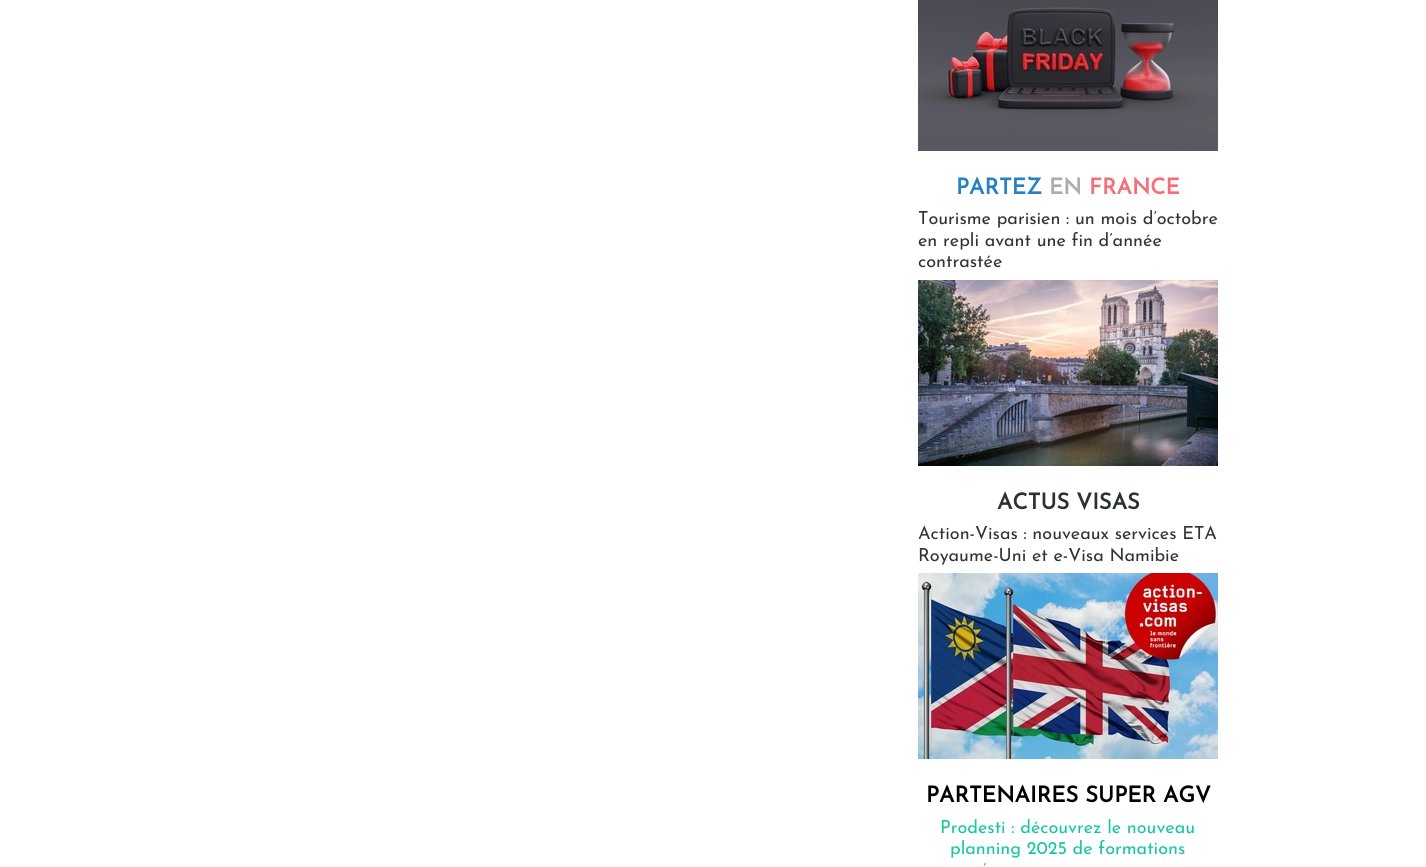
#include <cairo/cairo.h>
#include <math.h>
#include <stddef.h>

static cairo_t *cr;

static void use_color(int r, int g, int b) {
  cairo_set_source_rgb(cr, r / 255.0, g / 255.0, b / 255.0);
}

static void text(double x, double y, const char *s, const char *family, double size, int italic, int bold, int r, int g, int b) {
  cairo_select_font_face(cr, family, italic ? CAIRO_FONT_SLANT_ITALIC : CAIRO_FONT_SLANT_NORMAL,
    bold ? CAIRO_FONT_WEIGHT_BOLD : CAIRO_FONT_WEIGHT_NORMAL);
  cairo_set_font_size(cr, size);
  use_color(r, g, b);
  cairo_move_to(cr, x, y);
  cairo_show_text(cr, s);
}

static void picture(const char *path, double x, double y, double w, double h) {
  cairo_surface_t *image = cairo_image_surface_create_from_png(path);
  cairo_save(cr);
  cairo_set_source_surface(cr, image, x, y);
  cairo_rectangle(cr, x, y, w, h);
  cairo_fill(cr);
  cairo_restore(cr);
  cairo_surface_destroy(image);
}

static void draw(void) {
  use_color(255, 255, 255);
  cairo_paint(cr);
  picture("img_01.png", 918, 0, 300, 151);
  picture("img_02.png", 918, 280, 300, 186);
  picture("img_03.png", 918, 573, 300, 186);
  text(956, 194, "PARTEZ", "Josefin Sans", 22, 0, 1, 37, 129, 196);
  text(1049, 194, "EN", "Josefin Sans", 22, 0, 1, 172, 172, 172);
  text(1089, 194, "FRANCE", "Josefin Sans", 22, 0, 1, 244, 112, 120);
  text(918, 224, "Tourisme parisien : un mois d’octobre", "Josefin Sans Thin", 18, 0, 0, 51, 51, 51);
  text(918, 246, "en repli avant une fin d’année", "Josefin Sans Thin", 18, 0, 0, 51, 51, 51);
  text(918, 267, "contrastée", "Josefin Sans Thin", 18, 0, 0, 51, 51, 51);
  text(997, 509, "ACTUS VISAS", "Josefin Sans", 22, 0, 1, 44, 49, 53);
  text(918, 539, "Action-Visas : nouveaux services ETA", "Josefin Sans Thin", 18, 0, 0, 51, 51, 51);
  text(918, 561, "Royaume-Uni et e-Visa Namibie", "Josefin Sans Thin", 18, 0, 0, 51, 51, 51);
  text(926, 802, "PARTENAIRES SUPER AGV", "Josefin Sans", 22, 0, 1, 0, 0, 0);
  text(940, 833, "Prodesti : découvrez le nouveau", "Josefin Sans Thin", 18, 0, 0, 23, 199, 161);
  text(950, 854, "planning 2025 de formations", "Josefin Sans Thin", 18, 0, 0, 23, 199, 161);
  text(983, 876, "’", "Josefin Sans Thin", 18, 0, 0, 23, 199, 161);
}

int main(void) {
  cairo_surface_t *surface = cairo_image_surface_create(CAIRO_FORMAT_RGB24, 1426, 867);
  cr = cairo_create(surface);
  cairo_font_options_t *options = cairo_font_options_create();
  cairo_font_options_set_hint_metrics(options, CAIRO_HINT_METRICS_OFF);
  cairo_font_options_set_hint_style(options, CAIRO_HINT_STYLE_NONE);
  cairo_set_font_options(cr, options);
  cairo_set_miter_limit(cr, 4);
  draw();
  cairo_surface_write_to_png(surface, "out.png");
  cairo_font_options_destroy(options);
  cairo_destroy(cr);
  cairo_surface_destroy(surface);
  return 0;
}
